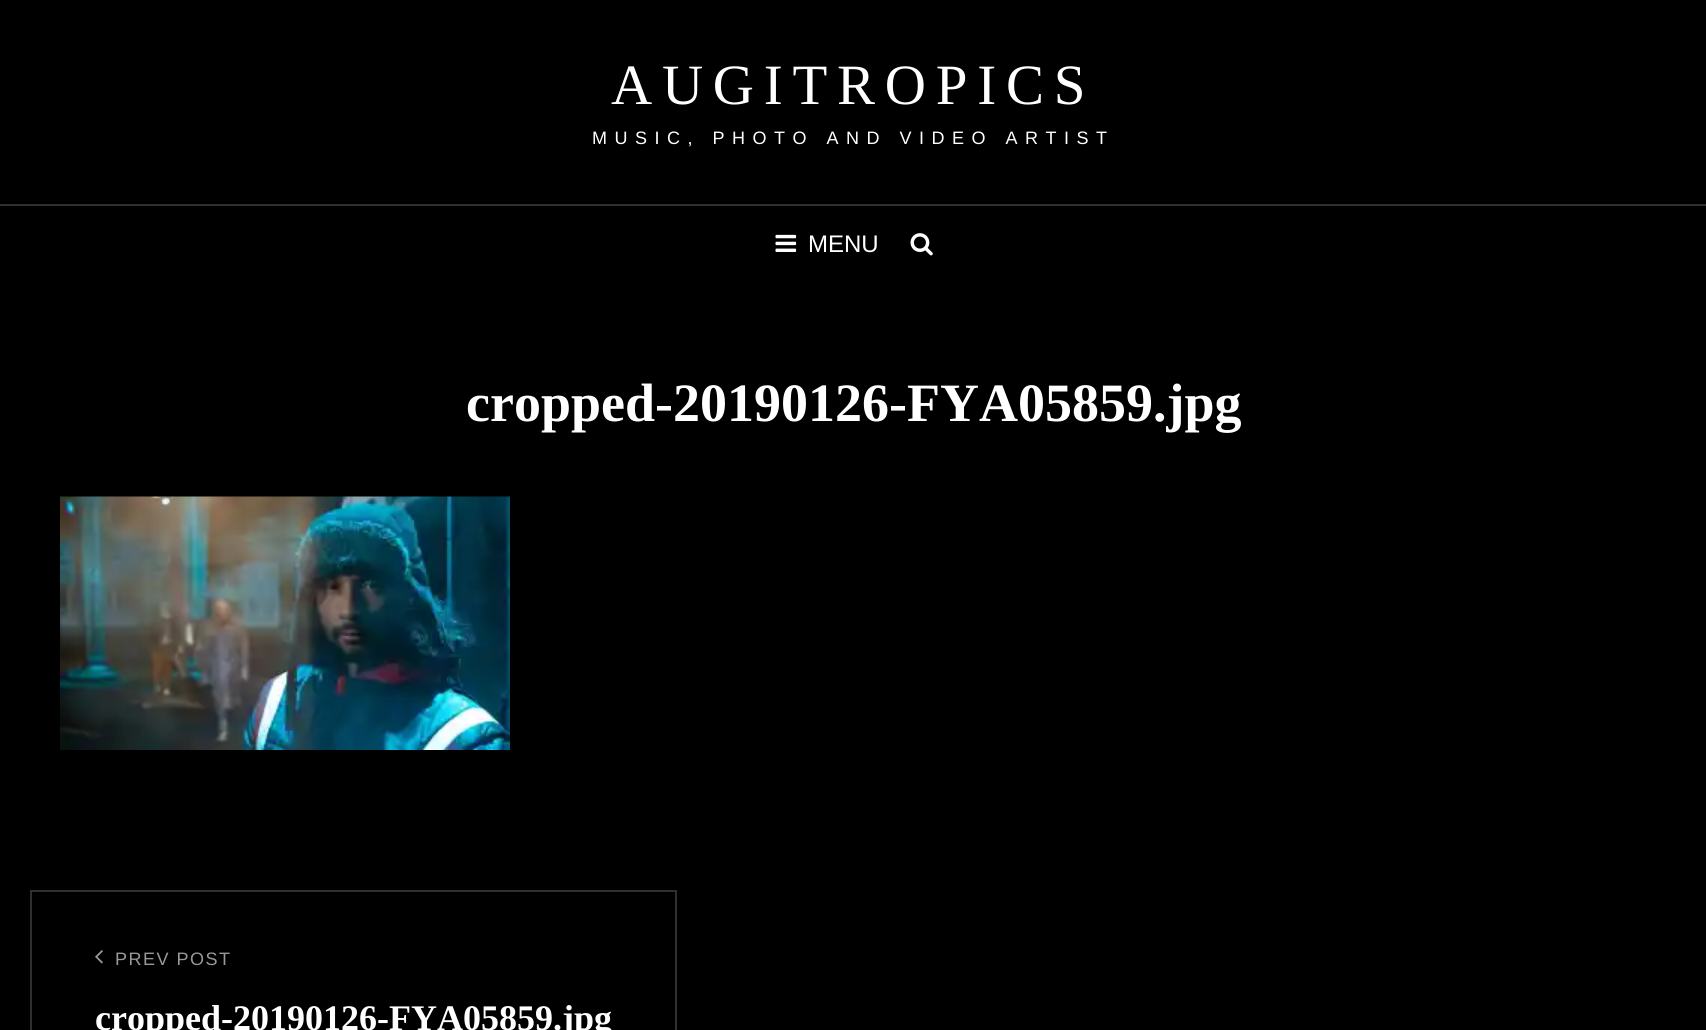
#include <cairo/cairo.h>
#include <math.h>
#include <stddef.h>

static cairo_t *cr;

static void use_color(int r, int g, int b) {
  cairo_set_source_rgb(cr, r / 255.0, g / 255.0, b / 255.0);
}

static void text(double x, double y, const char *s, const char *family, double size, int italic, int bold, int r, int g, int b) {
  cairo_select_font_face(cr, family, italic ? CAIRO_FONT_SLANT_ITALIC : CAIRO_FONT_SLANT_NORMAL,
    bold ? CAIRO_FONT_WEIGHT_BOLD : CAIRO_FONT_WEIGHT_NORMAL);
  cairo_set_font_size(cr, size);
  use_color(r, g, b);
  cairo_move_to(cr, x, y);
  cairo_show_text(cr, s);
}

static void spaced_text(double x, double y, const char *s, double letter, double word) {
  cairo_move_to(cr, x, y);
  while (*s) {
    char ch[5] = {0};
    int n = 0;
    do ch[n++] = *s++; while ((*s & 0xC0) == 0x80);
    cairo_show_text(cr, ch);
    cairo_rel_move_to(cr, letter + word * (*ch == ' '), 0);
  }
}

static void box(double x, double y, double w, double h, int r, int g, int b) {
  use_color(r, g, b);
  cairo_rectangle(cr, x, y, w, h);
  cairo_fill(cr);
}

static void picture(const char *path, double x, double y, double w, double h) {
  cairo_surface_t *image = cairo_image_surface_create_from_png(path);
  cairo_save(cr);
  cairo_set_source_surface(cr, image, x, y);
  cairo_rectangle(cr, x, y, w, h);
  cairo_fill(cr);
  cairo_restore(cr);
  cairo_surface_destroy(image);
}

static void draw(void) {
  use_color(0, 0, 0);
  cairo_paint(cr);
  box(0, 204, 1706, 2, 47, 47, 47);
  picture("img_01.png", 775, 234, 22, 18);
  picture("img_02.png", 910, 233, 23, 23);
  picture("img_03.png", 60, 496, 450, 254);
  cairo_rectangle(cr, 31, 891, 645, 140);
  cairo_stroke(cr);
  picture("img_04.png", 95, 950, 8, 14);
  cairo_select_font_face(cr, "Liberation Serif", CAIRO_FONT_SLANT_NORMAL, CAIRO_FONT_WEIGHT_NORMAL);
  cairo_set_font_size(cr, 57);
  use_color(255, 255, 255);
  spaced_text(611, 104, "AUGITROPICS", 9.75, 0);
  cairo_select_font_face(cr, "Liberation Sans", CAIRO_FONT_SLANT_NORMAL, CAIRO_FONT_WEIGHT_NORMAL);
  cairo_set_font_size(cr, 18);
  spaced_text(592, 144, "MUSIC, PHOTO AND VIDEO ARTIST", 7.5, 0);
  text(808, 252, "MENU", "Liberation Sans", 24, 0, 0, 255, 255, 255);
  text(466, 421, "cropped-20190126-FYA05859.jpg", "Liberation Serif", 54, 0, 1, 255, 255, 255);
  cairo_select_font_face(cr, "Liberation Sans", CAIRO_FONT_SLANT_NORMAL, CAIRO_FONT_WEIGHT_NORMAL);
  cairo_set_font_size(cr, 18);
  use_color(153, 153, 153);
  spaced_text(115, 965, "PREV POST", 1.5, 0);
  text(95, 1030, "cropped-20190126-FYA05859.jpg", "Liberation Serif", 36, 0, 1, 255, 255, 255);
}

int main(void) {
  cairo_surface_t *surface = cairo_image_surface_create(CAIRO_FORMAT_RGB24, 1706, 1030);
  cr = cairo_create(surface);
  cairo_font_options_t *options = cairo_font_options_create();
  cairo_font_options_set_hint_metrics(options, CAIRO_HINT_METRICS_OFF);
  cairo_font_options_set_hint_style(options, CAIRO_HINT_STYLE_NONE);
  cairo_set_font_options(cr, options);
  cairo_set_miter_limit(cr, 4);
  draw();
  cairo_surface_write_to_png(surface, "out.png");
  cairo_font_options_destroy(options);
  cairo_destroy(cr);
  cairo_surface_destroy(surface);
  return 0;
}
